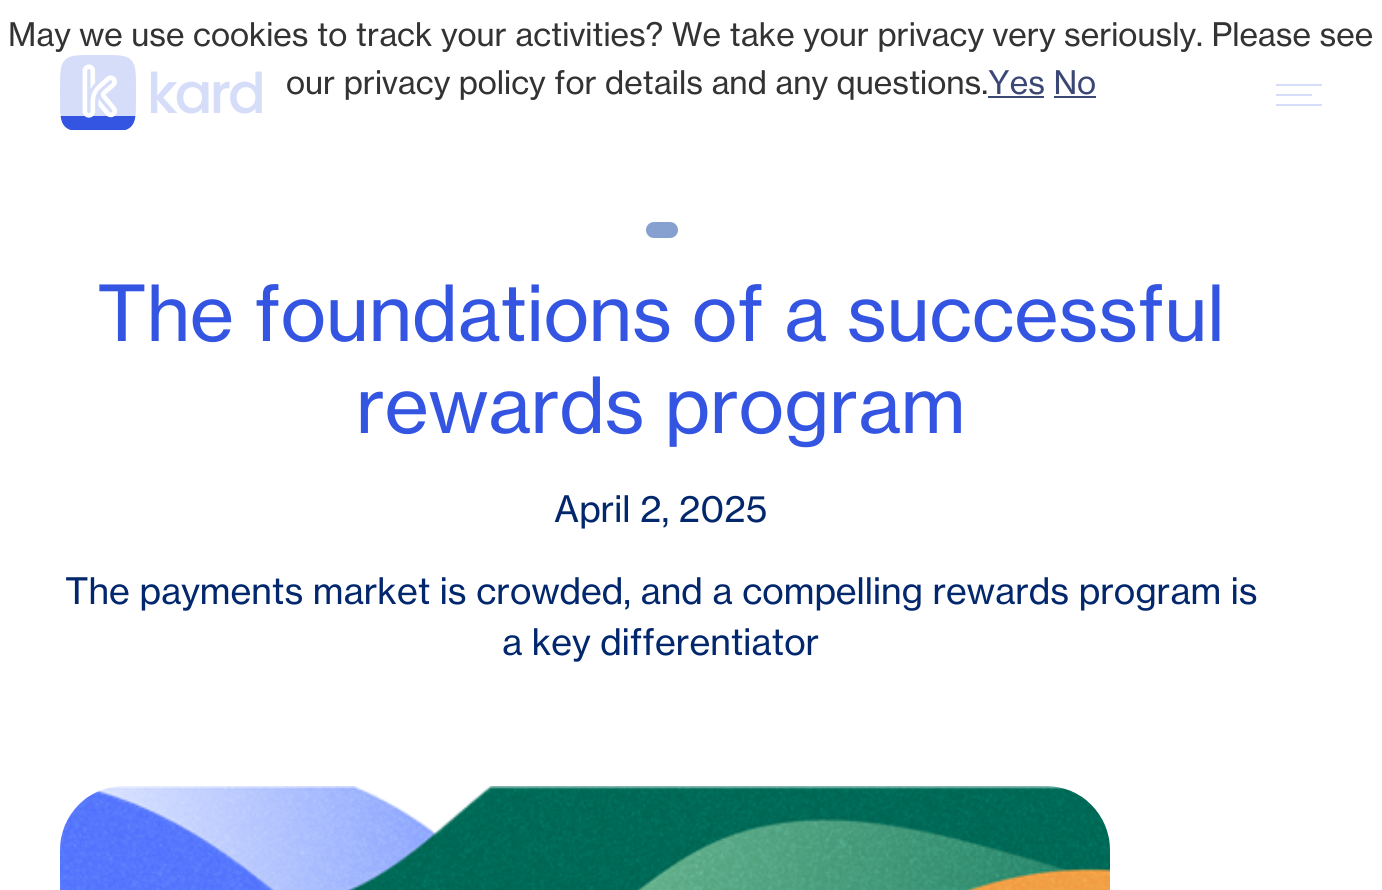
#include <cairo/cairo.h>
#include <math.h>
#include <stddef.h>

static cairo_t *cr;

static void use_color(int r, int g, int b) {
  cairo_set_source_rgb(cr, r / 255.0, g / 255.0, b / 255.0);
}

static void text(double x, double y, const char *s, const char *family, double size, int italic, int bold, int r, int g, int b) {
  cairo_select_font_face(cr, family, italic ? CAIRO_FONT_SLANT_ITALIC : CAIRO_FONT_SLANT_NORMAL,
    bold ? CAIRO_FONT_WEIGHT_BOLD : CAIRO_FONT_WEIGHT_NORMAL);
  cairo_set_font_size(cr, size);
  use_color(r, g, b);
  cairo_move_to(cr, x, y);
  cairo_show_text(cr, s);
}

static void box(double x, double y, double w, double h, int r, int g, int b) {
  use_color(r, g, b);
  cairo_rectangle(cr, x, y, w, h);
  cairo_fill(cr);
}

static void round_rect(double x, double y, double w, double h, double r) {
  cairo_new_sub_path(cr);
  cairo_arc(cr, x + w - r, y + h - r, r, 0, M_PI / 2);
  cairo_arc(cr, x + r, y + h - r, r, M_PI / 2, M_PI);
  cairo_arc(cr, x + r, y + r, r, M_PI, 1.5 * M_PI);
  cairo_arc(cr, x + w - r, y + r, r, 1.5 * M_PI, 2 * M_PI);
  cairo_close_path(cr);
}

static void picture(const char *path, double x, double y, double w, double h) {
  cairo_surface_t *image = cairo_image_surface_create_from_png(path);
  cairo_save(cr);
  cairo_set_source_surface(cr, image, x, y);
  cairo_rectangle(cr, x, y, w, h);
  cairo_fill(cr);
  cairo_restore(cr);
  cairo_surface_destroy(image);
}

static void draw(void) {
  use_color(255, 255, 255);
  cairo_paint(cr);
  picture("img_01.png", 60, 55, 202, 75);
  box(1276, 84, 46, 2, 52, 84, 226);
  box(1276, 94, 36, 2, 52, 84, 226);
  box(1276, 104, 46, 2, 52, 84, 226);
  cairo_set_source_rgba(cr, 1, 1, 1, 0.8);
  cairo_rectangle(cr, 60, 55, 1262, 61);
  cairo_fill(cr);
  box(988, 96, 56, 2, 59, 71, 117);
  box(1054, 96, 42, 2, 59, 71, 117);
  use_color(134, 160, 208);
  round_rect(646, 222, 32, 16, 8);
  cairo_fill(cr);
  picture("img_02.png", 60, 786, 1050, 104);
  text(8, 46, "May we use cookies to track your activities? We take your privacy very seriously. Please see", "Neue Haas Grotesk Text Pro", 32, 0, 0, 51, 51, 51);
  text(286, 94, "our privacy policy for details and any questions.", "Neue Haas Grotesk Text Pro", 32, 0, 0, 51, 51, 51);
  text(988, 94, "Yes No", "Neue Haas Grotesk Text Pro", 32, 0, 0, 59, 71, 117);
  text(97, 341, "The foundations of a successful", "Neue Haas Grotesk Text Pro", 76, 0, 0, 52, 84, 226);
  text(356, 433, "rewards program", "Neue Haas Grotesk Text Pro", 76, 0, 0, 52, 84, 226);
  text(554, 522, "April 2, 2025", "Neue Haas Grotesk Text Pro", 36, 0, 0, 3, 39, 109);
  text(65, 604, "The payments market is crowded, and a compelling rewards program is", "Neue Haas Grotesk Text Pro", 36, 0, 0, 3, 39, 109);
  text(502, 655, "a key differentiator", "Neue Haas Grotesk Text Pro", 36, 0, 0, 3, 39, 109);
}

int main(void) {
  cairo_surface_t *surface = cairo_image_surface_create(CAIRO_FORMAT_RGB24, 1382, 890);
  cr = cairo_create(surface);
  cairo_font_options_t *options = cairo_font_options_create();
  cairo_font_options_set_hint_metrics(options, CAIRO_HINT_METRICS_OFF);
  cairo_font_options_set_hint_style(options, CAIRO_HINT_STYLE_NONE);
  cairo_set_font_options(cr, options);
  cairo_set_miter_limit(cr, 4);
  draw();
  cairo_surface_write_to_png(surface, "out.png");
  cairo_font_options_destroy(options);
  cairo_destroy(cr);
  cairo_surface_destroy(surface);
  return 0;
}
